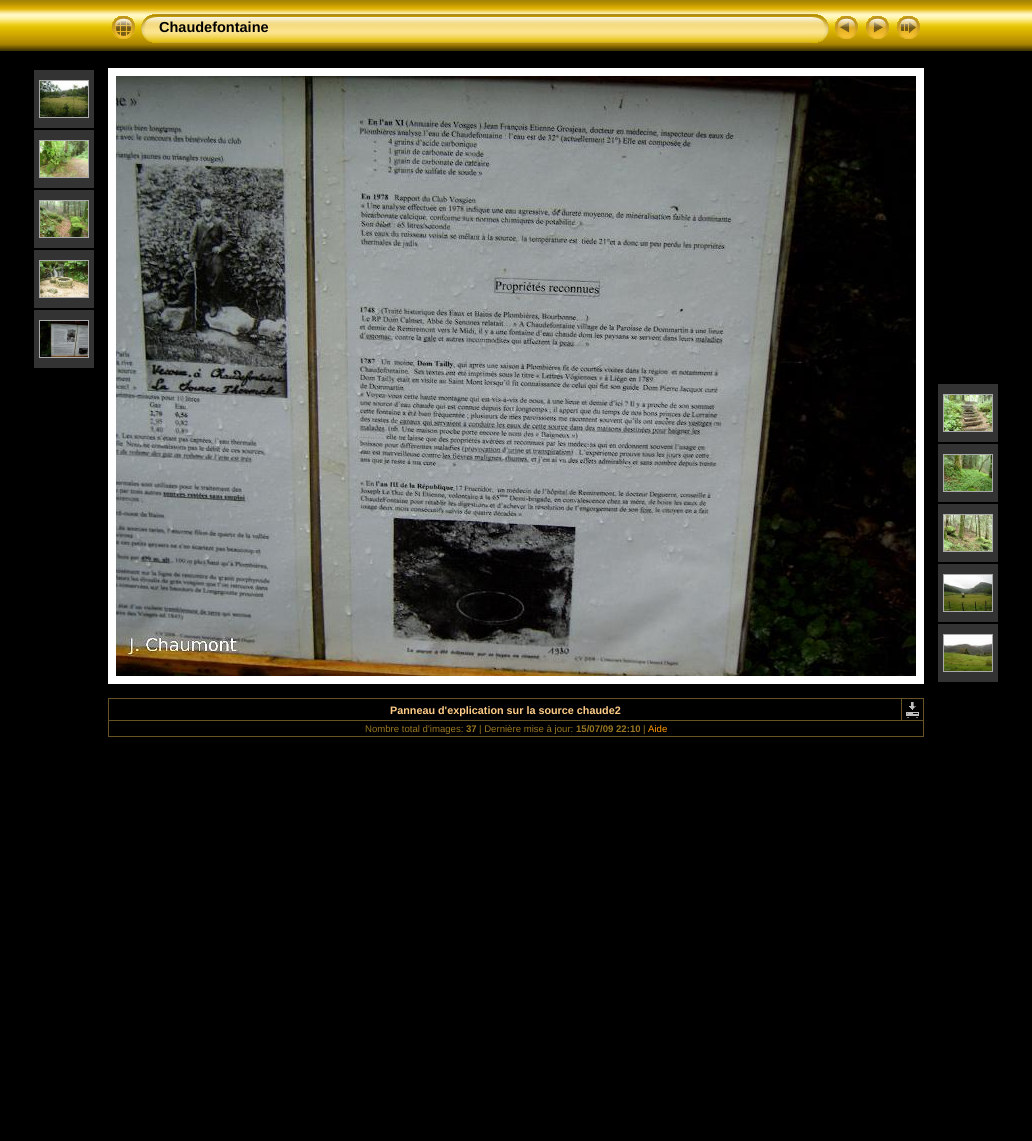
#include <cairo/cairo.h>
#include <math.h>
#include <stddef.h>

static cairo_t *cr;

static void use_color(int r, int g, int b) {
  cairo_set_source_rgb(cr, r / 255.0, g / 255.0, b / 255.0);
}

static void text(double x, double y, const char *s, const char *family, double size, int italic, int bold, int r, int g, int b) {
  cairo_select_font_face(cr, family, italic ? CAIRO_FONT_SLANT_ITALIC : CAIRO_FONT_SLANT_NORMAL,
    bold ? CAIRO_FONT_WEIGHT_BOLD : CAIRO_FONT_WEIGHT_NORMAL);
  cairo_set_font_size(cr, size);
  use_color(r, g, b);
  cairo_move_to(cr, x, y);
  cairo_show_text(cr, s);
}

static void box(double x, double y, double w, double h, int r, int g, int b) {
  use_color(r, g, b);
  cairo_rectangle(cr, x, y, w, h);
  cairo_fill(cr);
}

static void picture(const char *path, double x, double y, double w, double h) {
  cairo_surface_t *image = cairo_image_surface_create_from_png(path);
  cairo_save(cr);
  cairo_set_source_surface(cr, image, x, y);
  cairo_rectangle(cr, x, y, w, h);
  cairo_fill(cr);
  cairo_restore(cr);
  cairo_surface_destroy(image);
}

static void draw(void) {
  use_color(0, 0, 0);
  cairo_paint(cr);
  picture("img_01.png", 0, 0, 1032, 51);
  picture("img_02.png", 111, 16, 24, 23);
  picture("img_03.png", 141, 14, 18, 29);
  picture("img_04.png", 159, 14, 652, 29);
  picture("img_05.png", 811, 14, 18, 29);
  picture("img_06.png", 834, 16, 24, 23);
  picture("img_07.png", 865, 16, 24, 23);
  picture("img_08.png", 896, 16, 24, 23);
  box(34, 70, 60, 58, 51, 51, 51);
  cairo_rectangle(cr, 39.5, 80.5, 49, 37);
  use_color(170, 170, 170);
  cairo_set_line_width(cr, 1);
  cairo_stroke(cr);
  picture("img_09.png", 40, 81, 48, 36);
  box(34, 130, 60, 58, 51, 51, 51);
  cairo_rectangle(cr, 39.5, 140.5, 49, 37);
  use_color(170, 170, 170);
  cairo_stroke(cr);
  picture("img_10.png", 40, 141, 48, 36);
  box(34, 190, 60, 58, 51, 51, 51);
  cairo_rectangle(cr, 39.5, 200.5, 49, 37);
  use_color(170, 170, 170);
  cairo_stroke(cr);
  picture("img_11.png", 40, 201, 48, 36);
  box(34, 250, 60, 58, 51, 51, 51);
  cairo_rectangle(cr, 39.5, 260.5, 49, 37);
  use_color(170, 170, 170);
  cairo_stroke(cr);
  picture("img_12.png", 40, 261, 48, 36);
  box(34, 310, 60, 58, 51, 51, 51);
  cairo_rectangle(cr, 39.5, 320.5, 49, 37);
  use_color(170, 170, 170);
  cairo_stroke(cr);
  picture("img_13.png", 40, 321, 48, 36);
  cairo_rectangle(cr, 112, 72, 808, 608);
  use_color(255, 255, 255);
  cairo_set_line_width(cr, 8);
  cairo_stroke(cr);
  picture("img_14.png", 116, 76, 800, 600);
  box(938, 384, 60, 58, 51, 51, 51);
  cairo_rectangle(cr, 943.5, 394.5, 49, 37);
  use_color(170, 170, 170);
  cairo_set_line_width(cr, 1);
  cairo_stroke(cr);
  picture("img_15.png", 944, 395, 48, 36);
  box(938, 444, 60, 58, 51, 51, 51);
  cairo_rectangle(cr, 943.5, 454.5, 49, 37);
  use_color(170, 170, 170);
  cairo_stroke(cr);
  picture("img_16.png", 944, 455, 48, 36);
  box(938, 504, 60, 58, 51, 51, 51);
  cairo_rectangle(cr, 943.5, 514.5, 49, 37);
  use_color(170, 170, 170);
  cairo_stroke(cr);
  picture("img_17.png", 944, 515, 48, 36);
  box(938, 564, 60, 58, 51, 51, 51);
  cairo_rectangle(cr, 943.5, 574.5, 49, 37);
  use_color(170, 170, 170);
  cairo_stroke(cr);
  picture("img_18.png", 944, 575, 48, 36);
  box(938, 624, 60, 58, 51, 51, 51);
  cairo_rectangle(cr, 943.5, 634.5, 49, 37);
  use_color(170, 170, 170);
  cairo_stroke(cr);
  picture("img_19.png", 944, 635, 48, 36);
  box(108, 698, 816, 1, 102, 85, 34);
  box(923, 698, 1, 39, 102, 85, 34);
  box(108, 736, 816, 1, 102, 85, 34);
  box(108, 698, 1, 39, 102, 85, 34);
  box(108, 720, 816, 1, 102, 85, 34);
  box(901, 698, 1, 23, 102, 85, 34);
  picture("img_20.png", 906, 702, 13, 16);
  text(159, 32, "Chaudefontaine", "Liberation Sans", 14.5, 0, 1, 0, 0, 0);
  text(390, 714, "Panneau d'explication sur la source chaude2", "Liberation Sans", 10.8, 0, 1, 255, 204, 136);
  text(365, 732, "Nombre total d'images:", "Liberation Sans", 9.6, 0, 0, 153, 119, 34);
  text(466, 732, "37", "Liberation Sans", 9.6, 0, 1, 153, 119, 34);
  text(479, 732, "| Dernière mise à jour:", "Liberation Sans", 9.6, 0, 0, 153, 119, 34);
  text(576, 732, "15/07/09 22:10", "Liberation Sans", 9.6, 0, 1, 153, 119, 34);
  text(643, 732, "|", "Liberation Sans", 9.6, 0, 0, 153, 119, 34);
  text(648, 732, "Aide", "Liberation Sans", 9.6, 0, 0, 255, 153, 0);
}

int main(void) {
  cairo_surface_t *surface = cairo_image_surface_create(CAIRO_FORMAT_RGB24, 1032, 1141);
  cr = cairo_create(surface);
  cairo_font_options_t *options = cairo_font_options_create();
  cairo_font_options_set_hint_metrics(options, CAIRO_HINT_METRICS_OFF);
  cairo_font_options_set_hint_style(options, CAIRO_HINT_STYLE_NONE);
  cairo_set_font_options(cr, options);
  cairo_set_miter_limit(cr, 4);
  draw();
  cairo_surface_write_to_png(surface, "out.png");
  cairo_font_options_destroy(options);
  cairo_destroy(cr);
  cairo_surface_destroy(surface);
  return 0;
}
